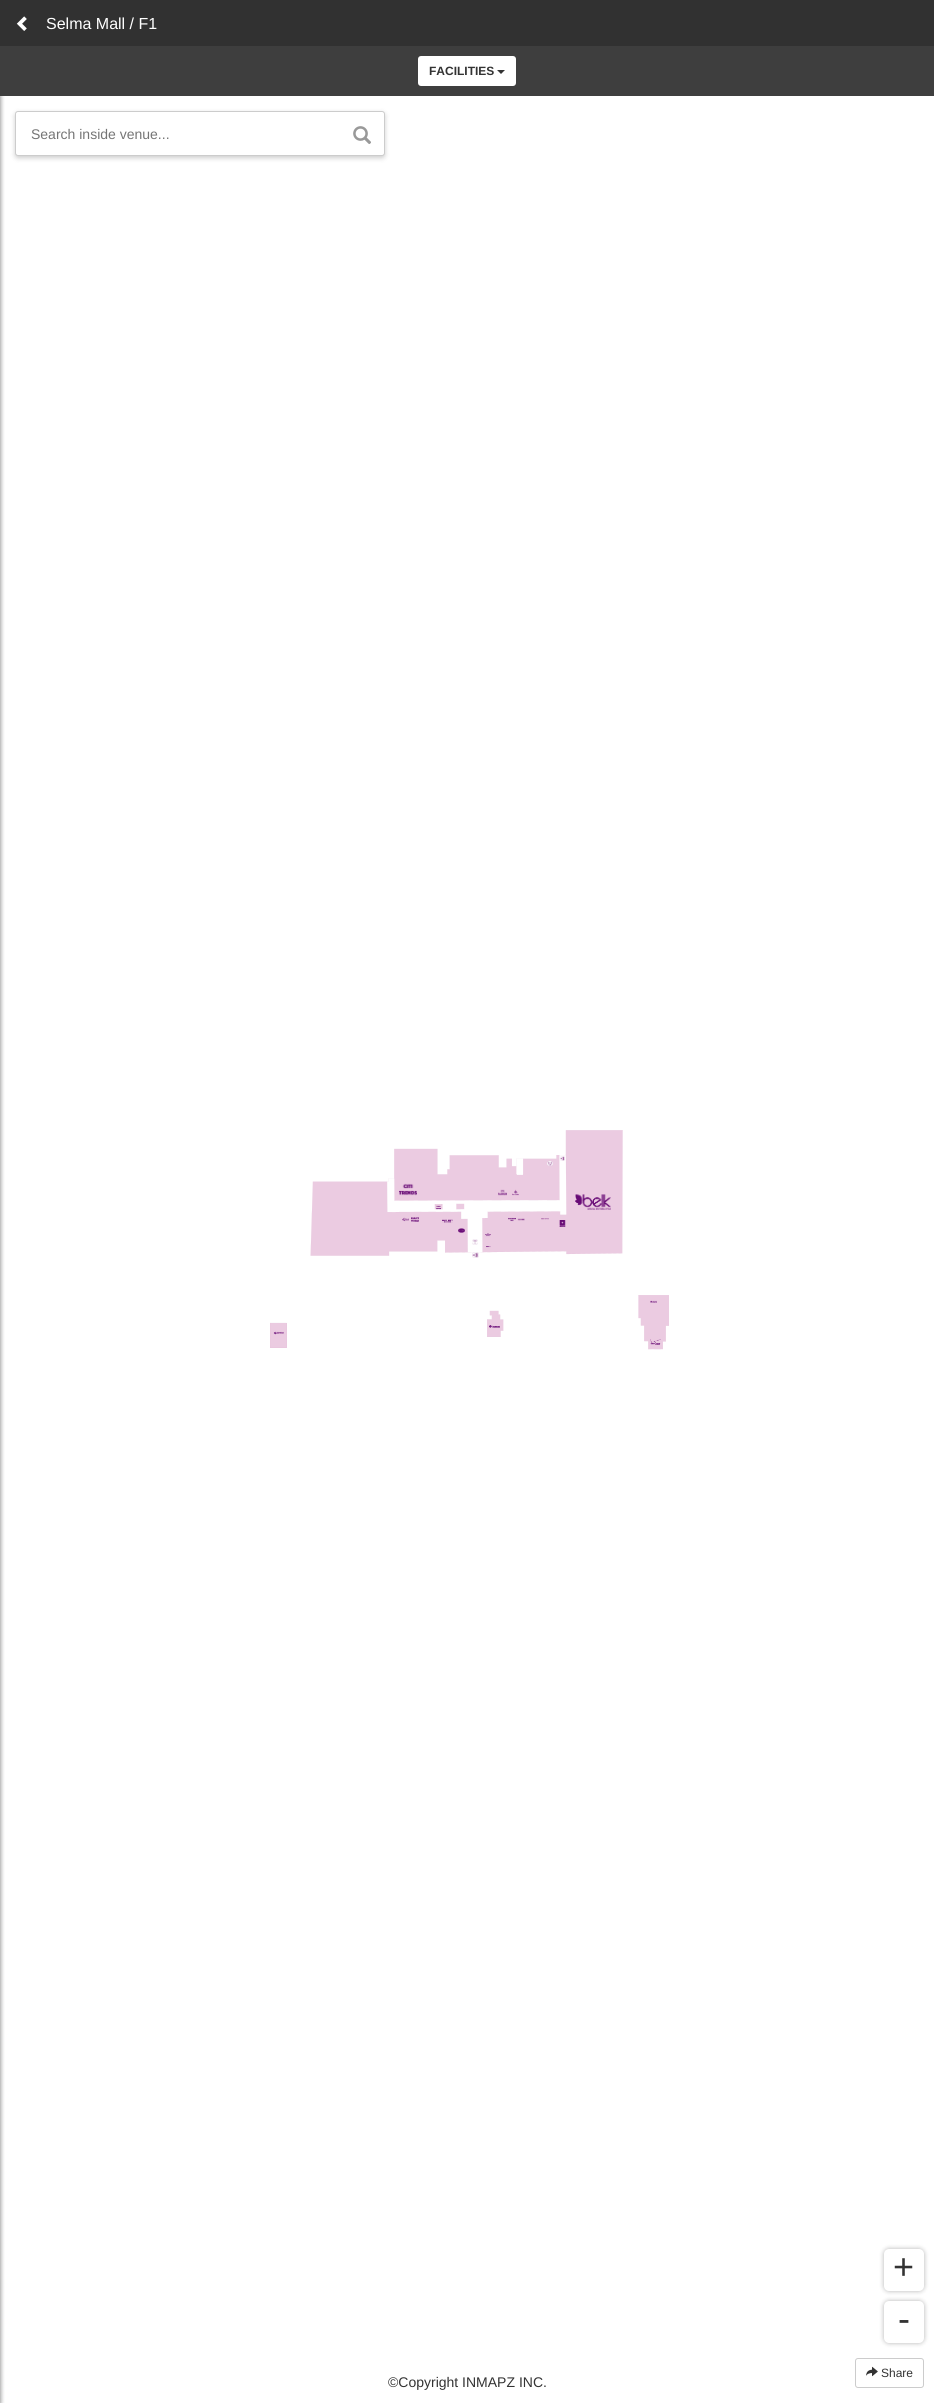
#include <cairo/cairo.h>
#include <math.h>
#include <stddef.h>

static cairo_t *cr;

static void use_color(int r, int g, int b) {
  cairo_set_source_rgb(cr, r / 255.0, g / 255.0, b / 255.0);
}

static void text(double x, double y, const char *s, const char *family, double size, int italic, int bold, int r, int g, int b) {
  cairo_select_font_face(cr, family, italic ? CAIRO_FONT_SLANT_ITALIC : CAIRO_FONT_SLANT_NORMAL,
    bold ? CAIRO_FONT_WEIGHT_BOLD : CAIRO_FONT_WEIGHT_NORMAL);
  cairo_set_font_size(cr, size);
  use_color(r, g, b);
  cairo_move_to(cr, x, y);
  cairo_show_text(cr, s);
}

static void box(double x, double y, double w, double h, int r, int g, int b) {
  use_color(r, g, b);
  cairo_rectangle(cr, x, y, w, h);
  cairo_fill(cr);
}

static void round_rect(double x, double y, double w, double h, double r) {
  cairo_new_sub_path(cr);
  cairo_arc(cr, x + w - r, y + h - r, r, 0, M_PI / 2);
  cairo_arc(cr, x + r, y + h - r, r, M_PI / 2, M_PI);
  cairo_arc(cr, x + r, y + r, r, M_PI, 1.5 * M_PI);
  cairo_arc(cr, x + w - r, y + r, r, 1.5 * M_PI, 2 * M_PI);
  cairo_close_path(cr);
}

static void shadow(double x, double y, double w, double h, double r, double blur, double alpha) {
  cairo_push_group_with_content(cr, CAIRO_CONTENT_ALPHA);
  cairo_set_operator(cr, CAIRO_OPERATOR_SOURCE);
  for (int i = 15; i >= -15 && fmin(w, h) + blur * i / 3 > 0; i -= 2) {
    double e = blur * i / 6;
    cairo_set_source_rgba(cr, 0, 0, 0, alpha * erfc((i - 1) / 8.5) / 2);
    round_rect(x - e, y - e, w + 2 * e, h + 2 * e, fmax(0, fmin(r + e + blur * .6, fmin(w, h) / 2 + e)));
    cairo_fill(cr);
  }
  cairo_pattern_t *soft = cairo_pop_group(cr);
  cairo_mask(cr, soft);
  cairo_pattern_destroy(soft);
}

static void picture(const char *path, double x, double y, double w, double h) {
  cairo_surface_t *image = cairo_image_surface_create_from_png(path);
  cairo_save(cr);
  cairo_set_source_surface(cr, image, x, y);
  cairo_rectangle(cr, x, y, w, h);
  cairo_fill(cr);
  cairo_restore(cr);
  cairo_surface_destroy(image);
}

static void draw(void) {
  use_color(255, 255, 255);
  cairo_paint(cr);
  box(0, 0, 934, 46, 49, 49, 49);
  picture("img_01.png", 16, 16, 11, 15);
  box(0, 46, 934, 50, 62, 62, 62);
  use_color(255, 255, 255);
  round_rect(418, 56, 98, 30, 3);
  cairo_fill(cr);
  use_color(51, 51, 51);
  cairo_new_path(cr);
  cairo_move_to(cr, 497, 70);
  cairo_line_to(cr, 505, 70);
  cairo_line_to(cr, 501, 74);
  cairo_close_path(cr);
  cairo_fill(cr);
  cairo_save(cr);
  cairo_rectangle(cr, 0, 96, 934, 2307);
  cairo_clip(cr);
  use_color(0, 0, 0);
  shadow(-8, 96, 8, 2307, 0, 2.5, 0.3);
  shadow(-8, 96, 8, 2307, 0, 2.5, 0.3);
  cairo_restore(cr);
  use_color(0, 0, 0);
  shadow(15, 113, 370, 45, 3, 2.5, 0.2);
  use_color(255, 255, 255);
  round_rect(15.5, 111.5, 369, 44, 2.5);
  cairo_fill_preserve(cr);
  use_color(204, 204, 204);
  cairo_set_line_width(cr, 1);
  cairo_stroke(cr);
  picture("img_02.png", 353, 126, 18, 18);
  picture("img_03.png", 270, 1130, 399, 220);
  picture("img_04.png", 560, 1156, 5, 5);
  picture("img_05.png", 547, 1161, 6, 5);
  picture("img_06.png", 399, 1183, 18, 13);
  picture("img_07.png", 498, 1189, 9, 7);
  picture("img_08.png", 512, 1189, 7, 7);
  picture("img_09.png", 436, 1205, 5, 5);
  picture("img_10.png", 575, 1194, 36, 16);
  picture("img_11.png", 402, 1217, 7, 5);
  picture("img_12.png", 411, 1217, 8, 5);
  picture("img_13.png", 442, 1219, 11, 4);
  picture("img_14.png", 508, 1217, 8, 5);
  picture("img_15.png", 517, 1218, 8, 3);
  picture("img_16.png", 541, 1218, 8, 2);
  picture("img_17.png", 559, 1220, 7, 7);
  picture("img_18.png", 458, 1228, 7, 5);
  picture("img_19.png", 485, 1233, 6, 4);
  picture("img_20.png", 472, 1239, 6, 6);
  picture("img_21.png", 486, 1246, 5, 2);
  picture("img_22.png", 472, 1252, 7, 6);
  picture("img_23.png", 650, 1300, 7, 3);
  picture("img_24.png", 489, 1325, 11, 3);
  picture("img_25.png", 273, 1331, 11, 4);
  picture("img_26.png", 650, 1339, 11, 6);
  use_color(0, 0, 0);
  shadow(884, 2249, 40, 42, 5, 2.5, 0.3);
  use_color(255, 255, 255);
  round_rect(884, 2249, 40, 42, 5);
  cairo_fill(cr);
  use_color(0, 0, 0);
  shadow(884, 2301, 40, 42, 5, 2.5, 0.3);
  use_color(255, 255, 255);
  round_rect(884, 2301, 40, 42, 5);
  cairo_fill(cr);
  round_rect(855.5, 2358.5, 68, 29, 2.5);
  use_color(204, 204, 204);
  cairo_stroke(cr);
  picture("img_27.png", 866, 2366, 12, 11);
  text(46, 29, "Selma Mall / F1", "Liberation Sans", 16, 0, 0, 255, 255, 255);
  text(429, 75, "FACILITIES", "Liberation Sans", 12, 0, 1, 51, 51, 51);
  text(31, 139, "Search inside venue...", "Liberation Sans", 14, 0, 0, 117, 117, 117);
  text(893, 2279, "+", "Liberation Sans", 36, 0, 0, 51, 51, 51);
  text(898, 2331, "-", "Liberation Sans", 36, 0, 0, 51, 51, 51);
  text(881, 2377, "Share", "Liberation Sans", 12, 0, 0, 51, 51, 51);
  text(388, 2387, "©Copyright INMAPZ INC.", "Liberation Sans", 14, 0, 0, 51, 51, 51);
}

int main(void) {
  cairo_surface_t *surface = cairo_image_surface_create(CAIRO_FORMAT_RGB24, 934, 2403);
  cr = cairo_create(surface);
  cairo_font_options_t *options = cairo_font_options_create();
  cairo_font_options_set_hint_metrics(options, CAIRO_HINT_METRICS_OFF);
  cairo_font_options_set_hint_style(options, CAIRO_HINT_STYLE_NONE);
  cairo_set_font_options(cr, options);
  cairo_set_miter_limit(cr, 4);
  draw();
  cairo_surface_write_to_png(surface, "out.png");
  cairo_font_options_destroy(options);
  cairo_destroy(cr);
  cairo_surface_destroy(surface);
  return 0;
}
